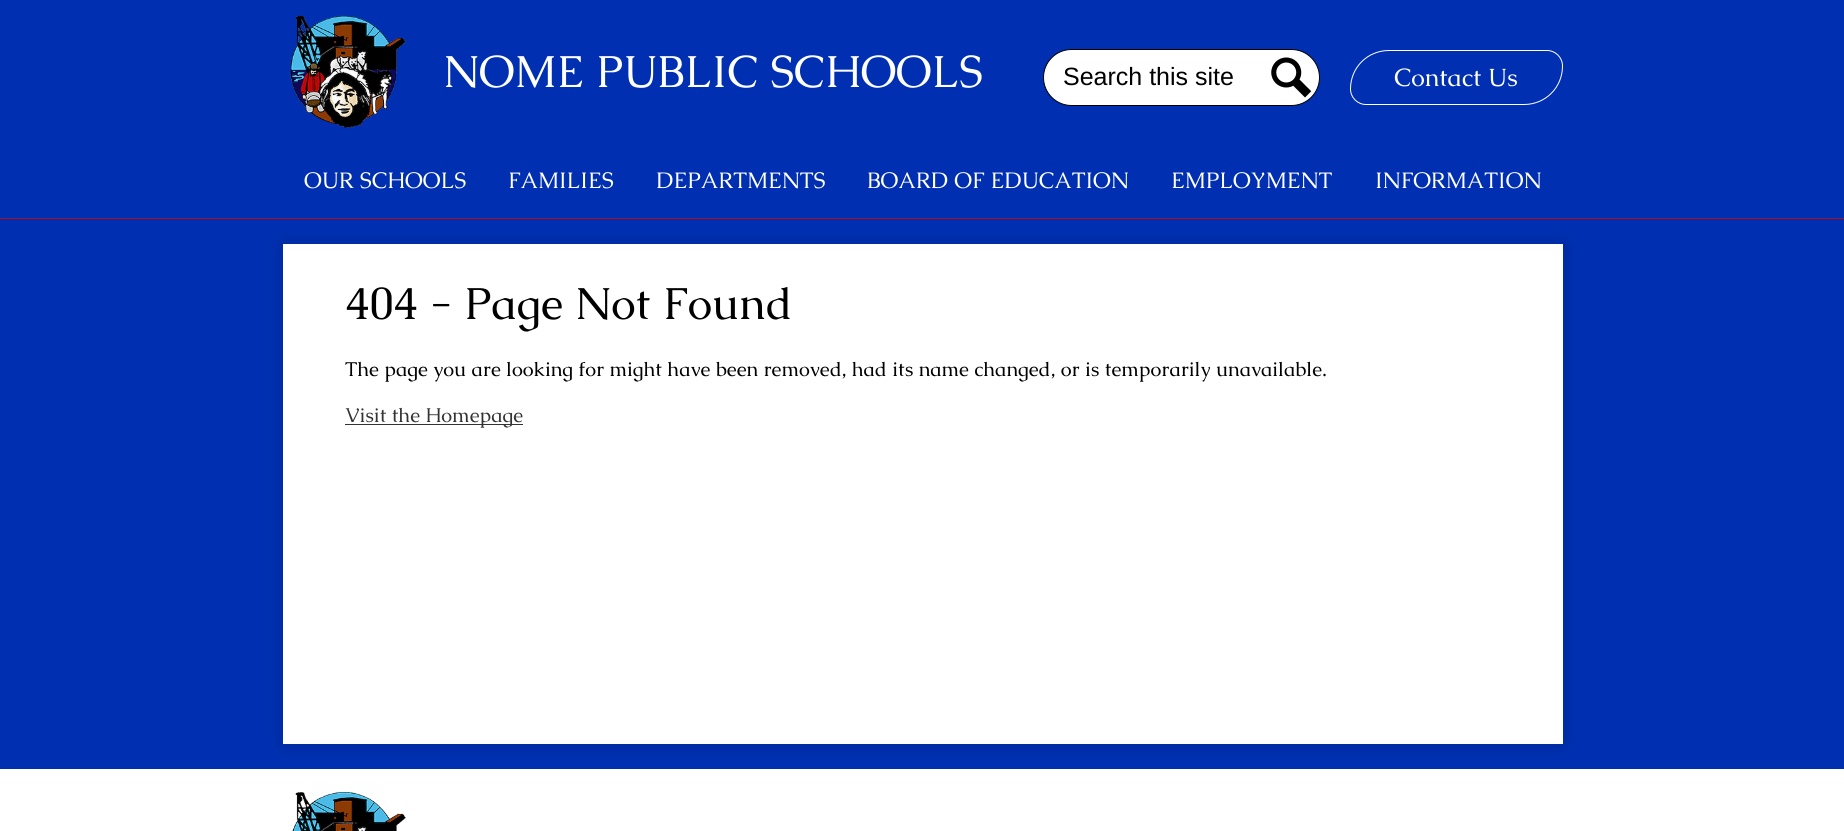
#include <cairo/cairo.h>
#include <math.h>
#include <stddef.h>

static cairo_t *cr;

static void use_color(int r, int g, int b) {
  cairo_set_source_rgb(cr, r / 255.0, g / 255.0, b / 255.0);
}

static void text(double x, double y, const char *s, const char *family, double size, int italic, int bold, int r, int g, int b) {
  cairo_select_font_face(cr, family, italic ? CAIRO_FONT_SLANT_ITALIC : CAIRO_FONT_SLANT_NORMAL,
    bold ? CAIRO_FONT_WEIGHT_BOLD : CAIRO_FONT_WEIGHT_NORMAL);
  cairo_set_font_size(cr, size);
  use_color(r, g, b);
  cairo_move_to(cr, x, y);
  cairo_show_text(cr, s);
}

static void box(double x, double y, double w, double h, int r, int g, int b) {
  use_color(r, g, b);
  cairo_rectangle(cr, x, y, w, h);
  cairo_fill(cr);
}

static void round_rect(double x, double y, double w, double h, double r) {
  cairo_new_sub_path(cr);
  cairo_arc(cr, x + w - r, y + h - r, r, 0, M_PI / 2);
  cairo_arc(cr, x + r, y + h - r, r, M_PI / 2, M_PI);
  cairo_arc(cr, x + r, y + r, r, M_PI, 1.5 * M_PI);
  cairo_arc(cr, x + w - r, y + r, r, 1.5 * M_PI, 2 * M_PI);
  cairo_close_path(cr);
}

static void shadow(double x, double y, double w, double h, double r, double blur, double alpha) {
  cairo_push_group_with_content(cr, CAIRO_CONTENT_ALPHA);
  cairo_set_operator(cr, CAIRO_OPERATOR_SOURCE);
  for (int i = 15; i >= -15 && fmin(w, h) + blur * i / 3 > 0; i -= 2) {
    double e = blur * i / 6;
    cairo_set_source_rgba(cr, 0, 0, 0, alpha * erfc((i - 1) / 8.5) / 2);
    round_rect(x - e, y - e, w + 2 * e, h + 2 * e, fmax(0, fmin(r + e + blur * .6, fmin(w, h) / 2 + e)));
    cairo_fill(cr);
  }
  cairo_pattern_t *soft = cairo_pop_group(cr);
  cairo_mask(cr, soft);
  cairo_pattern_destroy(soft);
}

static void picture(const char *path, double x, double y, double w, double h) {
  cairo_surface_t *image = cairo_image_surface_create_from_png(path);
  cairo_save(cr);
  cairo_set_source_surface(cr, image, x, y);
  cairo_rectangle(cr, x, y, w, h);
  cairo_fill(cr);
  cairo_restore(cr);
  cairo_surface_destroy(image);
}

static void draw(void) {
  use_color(0, 48, 177);
  cairo_paint(cr);
  box(0, 769, 1844, 62, 255, 255, 255);
  use_color(0, 0, 0);
  shadow(283, 244, 1280, 500, 0, 9.5, 0.15);
  box(0, 218, 1844, 1, 185, 11, 9);
  picture("img_01.png", 290, 15, 116, 113);
  use_color(255, 255, 255);
  round_rect(1043.5, 49.5, 276, 56, 28);
  cairo_fill_preserve(cr);
  use_color(0, 0, 0);
  cairo_set_line_width(cr, 1);
  cairo_stroke(cr);
  picture("img_02.png", 1271, 57, 41, 41);
  cairo_new_path(cr);
  cairo_move_to(cr, 1389, 50.5);
  cairo_line_to(cr, 1547, 50.5);
  cairo_curve_to(cr, 1555.5, 50.5, 1562.5, 57.5, 1562.5, 66);
  cairo_curve_to(cr, 1562.5, 87.5, 1545.5, 104.5, 1524, 104.5);
  cairo_line_to(cr, 1366, 104.5);
  cairo_curve_to(cr, 1357.5, 104.5, 1350.5, 97.5, 1350.5, 89);
  cairo_curve_to(cr, 1350.5, 67.5, 1367.5, 50.5, 1389, 50.5);
  cairo_close_path(cr);
  use_color(255, 255, 255);
  cairo_stroke(cr);
  box(283, 244, 1280, 500, 255, 255, 255);
  box(345, 424, 178, 1, 51, 51, 51);
  picture("img_03.png", 292, 791, 114, 40);
  text(443, 87, "NOME PUBLIC SCHOOLS", "Caudex", 45, 0, 0, 255, 255, 255);
  text(1063, 85, "Search this site", "Liberation Sans", 25, 0, 0, 0, 0, 0);
  text(1394, 86, "Contact Us", "Caudex", 25, 0, 0, 255, 255, 255);
  text(304, 188, "OUR SCHOOLS", "Caudex", 22.5, 0, 0, 255, 255, 255);
  text(508, 188, "FAMILIES", "Caudex", 22.5, 0, 0, 255, 255, 255);
  text(656, 188, "DEPARTMENTS", "Caudex", 22.5, 0, 0, 255, 255, 255);
  text(867, 188, "BOARD OF EDUCATION", "Caudex", 22.5, 0, 0, 255, 255, 255);
  text(1171, 188, "EMPLOYMENT", "Caudex", 22.5, 0, 0, 255, 255, 255);
  text(1375, 188, "INFORMATION", "Caudex", 22.5, 0, 0, 255, 255, 255);
  text(345, 319, "404 - Page Not Found", "Caudex", 45, 0, 0, 0, 0, 0);
  text(345, 376, "The page you are looking for might have been removed, had its name changed, or is temporarily unavailable.", "Caudex", 20, 0, 0, 0, 0, 0);
  text(345, 422, "Visit the Homepage", "Caudex", 20, 0, 0, 51, 51, 51);
}

int main(void) {
  cairo_surface_t *surface = cairo_image_surface_create(CAIRO_FORMAT_RGB24, 1844, 831);
  cr = cairo_create(surface);
  cairo_font_options_t *options = cairo_font_options_create();
  cairo_font_options_set_hint_metrics(options, CAIRO_HINT_METRICS_OFF);
  cairo_font_options_set_hint_style(options, CAIRO_HINT_STYLE_NONE);
  cairo_set_font_options(cr, options);
  cairo_set_miter_limit(cr, 4);
  draw();
  cairo_surface_write_to_png(surface, "out.png");
  cairo_font_options_destroy(options);
  cairo_destroy(cr);
  cairo_surface_destroy(surface);
  return 0;
}
